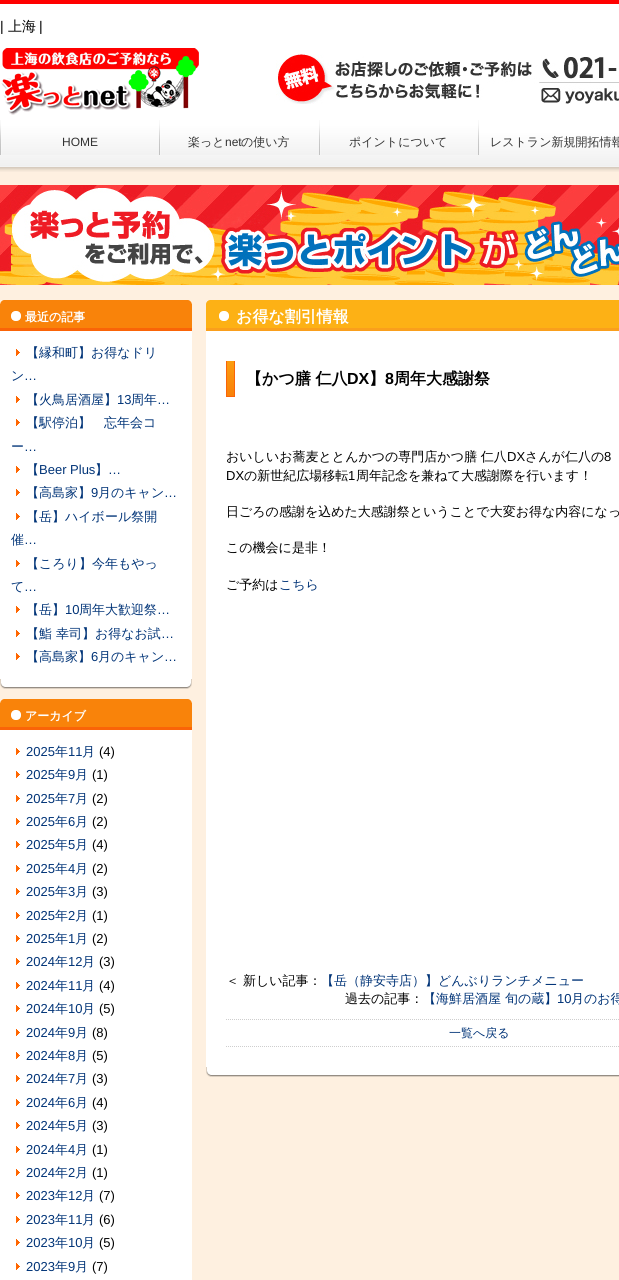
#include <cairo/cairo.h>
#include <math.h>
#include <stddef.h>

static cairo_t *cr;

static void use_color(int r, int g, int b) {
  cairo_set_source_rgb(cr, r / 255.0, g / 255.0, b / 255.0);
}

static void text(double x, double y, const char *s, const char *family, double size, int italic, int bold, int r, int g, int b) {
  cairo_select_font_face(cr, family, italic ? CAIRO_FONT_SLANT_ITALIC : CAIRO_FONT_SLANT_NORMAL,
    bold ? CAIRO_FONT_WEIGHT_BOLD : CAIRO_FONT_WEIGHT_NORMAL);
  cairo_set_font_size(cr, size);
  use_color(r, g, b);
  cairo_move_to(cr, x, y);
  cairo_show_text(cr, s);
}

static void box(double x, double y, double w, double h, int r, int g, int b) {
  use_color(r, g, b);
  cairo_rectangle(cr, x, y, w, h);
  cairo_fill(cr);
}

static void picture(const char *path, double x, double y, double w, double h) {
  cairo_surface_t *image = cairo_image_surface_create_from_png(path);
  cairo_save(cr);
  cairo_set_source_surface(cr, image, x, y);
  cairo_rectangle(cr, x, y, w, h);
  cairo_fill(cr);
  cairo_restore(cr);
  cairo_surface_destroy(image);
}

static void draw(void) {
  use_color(254, 240, 224);
  cairo_paint(cr);
  picture("img_01.png", 0, 0, 619, 172);
  picture("img_02.png", 276, 54, 343, 50);
  picture("img_03.png", 0, 48, 199, 67);
  picture("img_04.png", 0, 120, 479, 35);
  picture("img_05.png", 0, 185, 619, 100);
  picture("img_06.png", 0, 300, 192, 31);
  box(0, 331, 192, 348, 255, 255, 255);
  picture("img_07.png", 16, 349, 4, 7);
  picture("img_07.png", 16, 396, 4, 7);
  picture("img_07.png", 16, 419, 4, 7);
  picture("img_07.png", 16, 466, 4, 7);
  picture("img_07.png", 16, 489, 4, 7);
  picture("img_07.png", 16, 513, 4, 7);
  picture("img_07.png", 16, 560, 4, 7);
  picture("img_07.png", 16, 606, 4, 7);
  picture("img_07.png", 16, 630, 4, 7);
  picture("img_07.png", 16, 653, 4, 7);
  picture("img_08.png", 0, 679, 192, 10);
  picture("img_06.png", 0, 699, 192, 31);
  box(0, 730, 192, 550, 255, 255, 255);
  picture("img_07.png", 16, 748, 4, 7);
  picture("img_07.png", 16, 771, 4, 7);
  picture("img_07.png", 16, 795, 4, 7);
  picture("img_07.png", 16, 818, 4, 7);
  picture("img_07.png", 16, 841, 4, 7);
  picture("img_07.png", 16, 865, 4, 7);
  picture("img_07.png", 16, 888, 4, 7);
  picture("img_07.png", 16, 912, 4, 7);
  picture("img_07.png", 16, 935, 4, 7);
  picture("img_07.png", 16, 958, 4, 7);
  picture("img_07.png", 16, 982, 4, 7);
  picture("img_07.png", 16, 1005, 4, 7);
  picture("img_07.png", 16, 1029, 4, 7);
  picture("img_07.png", 16, 1052, 4, 7);
  picture("img_07.png", 16, 1075, 4, 7);
  picture("img_07.png", 16, 1099, 4, 7);
  picture("img_07.png", 16, 1122, 4, 7);
  picture("img_07.png", 16, 1146, 4, 7);
  picture("img_07.png", 16, 1169, 4, 7);
  picture("img_07.png", 16, 1192, 4, 7);
  picture("img_07.png", 16, 1216, 4, 7);
  picture("img_07.png", 16, 1239, 4, 7);
  picture("img_07.png", 16, 1263, 4, 7);
  picture("img_09.png", 206, 300, 413, 31);
  box(206, 331, 413, 736, 255, 255, 255);
  picture("img_10.png", 226, 361, 9, 36);
  cairo_new_path(cr);
  cairo_move_to(cr, 226, 1019.5);
  cairo_line_to(cr, 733, 1019.5);
  use_color(206, 206, 206);
  cairo_set_line_width(cr, 1);
  cairo_set_dash(cr, (double[]){1, 1}, 2, 0);
  cairo_stroke(cr);
  cairo_new_path(cr);
  cairo_move_to(cr, 226, 1046.5);
  cairo_line_to(cr, 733, 1046.5);
  cairo_stroke(cr);
  picture("img_11.png", 206, 1067, 413, 10);
  text(0, 31, "|", "Liberation Sans", 14, 0, 0, 0, 0, 0);
  text(8, 31, "上海", "WenQuanYi Zen Hei Medium", 14, 0, 0, 0, 0, 0);
  text(39, 31, "|", "Liberation Sans", 14, 0, 0, 0, 0, 0);
  text(62, 146, "HOME", "Liberation Sans", 12, 0, 0, 51, 51, 51);
  text(188, 146, "楽っと", "WenQuanYi Zen Hei Medium", 12, 0, 0, 51, 51, 51);
  text(225, 146, "net", "Liberation Sans", 12, 0, 0, 51, 51, 51);
  text(241, 146, "の使い方", "WenQuanYi Zen Hei Medium", 12, 0, 0, 51, 51, 51);
  text(349, 146, "ポイントについて", "WenQuanYi Zen Hei Medium", 12, 0, 0, 51, 51, 51);
  text(490, 146, "レストラン新規開拓情報", "WenQuanYi Zen Hei Medium", 12, 0, 0, 51, 51, 51);
  text(25, 321, "最近の記事", "WenQuanYi Zen Hei", 12, 0, 1, 255, 255, 255);
  text(26, 357, "【縁和町】お得なドリ", "WenQuanYi Zen Hei Medium", 13, 0, 0, 0, 51, 119);
  text(11, 380, "ン", "WenQuanYi Zen Hei Medium", 13, 0, 0, 0, 51, 119);
  text(24, 380, "…", "Liberation Sans", 13, 0, 0, 0, 51, 119);
  text(26, 404, "【火鳥居酒屋】", "WenQuanYi Zen Hei Medium", 13, 0, 0, 0, 51, 119);
  text(117, 404, "13", "Liberation Sans", 13, 0, 0, 0, 51, 119);
  text(131, 404, "周年", "WenQuanYi Zen Hei Medium", 13, 0, 0, 0, 51, 119);
  text(157, 404, "…", "Liberation Sans", 13, 0, 0, 0, 51, 119);
  text(26, 427, "【駅停泊】　忘年会コ", "WenQuanYi Zen Hei Medium", 13, 0, 0, 0, 51, 119);
  text(11, 451, "ー", "WenQuanYi Zen Hei Medium", 13, 0, 0, 0, 51, 119);
  text(24, 451, "…", "Liberation Sans", 13, 0, 0, 0, 51, 119);
  text(26, 474, "【", "WenQuanYi Zen Hei Medium", 13, 0, 0, 0, 51, 119);
  text(39, 474, "Beer Plus", "Liberation Sans", 13, 0, 0, 0, 51, 119);
  text(95, 474, "】", "WenQuanYi Zen Hei Medium", 13, 0, 0, 0, 51, 119);
  text(108, 474, "…", "Liberation Sans", 13, 0, 0, 0, 51, 119);
  text(26, 497, "【高島家】", "WenQuanYi Zen Hei Medium", 13, 0, 0, 0, 51, 119);
  text(91, 497, "9", "Liberation Sans", 13, 0, 0, 0, 51, 119);
  text(98, 497, "月のキャン", "WenQuanYi Zen Hei Medium", 13, 0, 0, 0, 51, 119);
  text(164, 497, "…", "Liberation Sans", 13, 0, 0, 0, 51, 119);
  text(26, 521, "【岳】ハイボール祭開", "WenQuanYi Zen Hei Medium", 13, 0, 0, 0, 51, 119);
  text(11, 544, "催", "WenQuanYi Zen Hei Medium", 13, 0, 0, 0, 51, 119);
  text(24, 544, "…", "Liberation Sans", 13, 0, 0, 0, 51, 119);
  text(26, 568, "【ころり】今年もやっ", "WenQuanYi Zen Hei Medium", 13, 0, 0, 0, 51, 119);
  text(11, 591, "て", "WenQuanYi Zen Hei Medium", 13, 0, 0, 0, 51, 119);
  text(24, 591, "…", "Liberation Sans", 13, 0, 0, 0, 51, 119);
  text(26, 614, "【岳】", "WenQuanYi Zen Hei Medium", 13, 0, 0, 0, 51, 119);
  text(65, 614, "10", "Liberation Sans", 13, 0, 0, 0, 51, 119);
  text(79, 614, "周年大歓迎祭", "WenQuanYi Zen Hei Medium", 13, 0, 0, 0, 51, 119);
  text(157, 614, "…", "Liberation Sans", 13, 0, 0, 0, 51, 119);
  text(26, 638, "【鮨 幸司】お得なお試", "WenQuanYi Zen Hei Medium", 13, 0, 0, 0, 51, 119);
  text(161, 638, "…", "Liberation Sans", 13, 0, 0, 0, 51, 119);
  text(26, 661, "【高島家】", "WenQuanYi Zen Hei Medium", 13, 0, 0, 0, 51, 119);
  text(91, 661, "6", "Liberation Sans", 13, 0, 0, 0, 51, 119);
  text(98, 661, "月のキャン", "WenQuanYi Zen Hei Medium", 13, 0, 0, 0, 51, 119);
  text(164, 661, "…", "Liberation Sans", 13, 0, 0, 0, 51, 119);
  text(25, 720, "アーカイブ", "WenQuanYi Zen Hei", 12, 0, 1, 255, 255, 255);
  text(26, 756, "2025", "Liberation Sans", 13, 0, 0, 0, 51, 119);
  text(55, 756, "年", "WenQuanYi Zen Hei Medium", 13, 0, 0, 0, 51, 119);
  text(68, 756, "11", "Liberation Sans", 13, 0, 0, 0, 51, 119);
  text(82, 756, "月", "WenQuanYi Zen Hei Medium", 13, 0, 0, 0, 51, 119);
  text(99, 756, "(4)", "Liberation Sans", 13, 0, 0, 0, 0, 0);
  text(26, 779, "2025", "Liberation Sans", 13, 0, 0, 0, 51, 119);
  text(55, 779, "年", "WenQuanYi Zen Hei Medium", 13, 0, 0, 0, 51, 119);
  text(68, 779, "9", "Liberation Sans", 13, 0, 0, 0, 51, 119);
  text(75, 779, "月", "WenQuanYi Zen Hei Medium", 13, 0, 0, 0, 51, 119);
  text(92, 779, "(1)", "Liberation Sans", 13, 0, 0, 0, 0, 0);
  text(26, 803, "2025", "Liberation Sans", 13, 0, 0, 0, 51, 119);
  text(55, 803, "年", "WenQuanYi Zen Hei Medium", 13, 0, 0, 0, 51, 119);
  text(68, 803, "7", "Liberation Sans", 13, 0, 0, 0, 51, 119);
  text(75, 803, "月", "WenQuanYi Zen Hei Medium", 13, 0, 0, 0, 51, 119);
  text(92, 803, "(2)", "Liberation Sans", 13, 0, 0, 0, 0, 0);
  text(26, 826, "2025", "Liberation Sans", 13, 0, 0, 0, 51, 119);
  text(55, 826, "年", "WenQuanYi Zen Hei Medium", 13, 0, 0, 0, 51, 119);
  text(68, 826, "6", "Liberation Sans", 13, 0, 0, 0, 51, 119);
  text(75, 826, "月", "WenQuanYi Zen Hei Medium", 13, 0, 0, 0, 51, 119);
  text(92, 826, "(2)", "Liberation Sans", 13, 0, 0, 0, 0, 0);
  text(26, 849, "2025", "Liberation Sans", 13, 0, 0, 0, 51, 119);
  text(55, 849, "年", "WenQuanYi Zen Hei Medium", 13, 0, 0, 0, 51, 119);
  text(68, 849, "5", "Liberation Sans", 13, 0, 0, 0, 51, 119);
  text(75, 849, "月", "WenQuanYi Zen Hei Medium", 13, 0, 0, 0, 51, 119);
  text(92, 849, "(4)", "Liberation Sans", 13, 0, 0, 0, 0, 0);
  text(26, 873, "2025", "Liberation Sans", 13, 0, 0, 0, 51, 119);
  text(55, 873, "年", "WenQuanYi Zen Hei Medium", 13, 0, 0, 0, 51, 119);
  text(68, 873, "4", "Liberation Sans", 13, 0, 0, 0, 51, 119);
  text(75, 873, "月", "WenQuanYi Zen Hei Medium", 13, 0, 0, 0, 51, 119);
  text(92, 873, "(2)", "Liberation Sans", 13, 0, 0, 0, 0, 0);
  text(26, 896, "2025", "Liberation Sans", 13, 0, 0, 0, 51, 119);
  text(55, 896, "年", "WenQuanYi Zen Hei Medium", 13, 0, 0, 0, 51, 119);
  text(68, 896, "3", "Liberation Sans", 13, 0, 0, 0, 51, 119);
  text(75, 896, "月", "WenQuanYi Zen Hei Medium", 13, 0, 0, 0, 51, 119);
  text(92, 896, "(3)", "Liberation Sans", 13, 0, 0, 0, 0, 0);
  text(26, 920, "2025", "Liberation Sans", 13, 0, 0, 0, 51, 119);
  text(55, 920, "年", "WenQuanYi Zen Hei Medium", 13, 0, 0, 0, 51, 119);
  text(68, 920, "2", "Liberation Sans", 13, 0, 0, 0, 51, 119);
  text(75, 920, "月", "WenQuanYi Zen Hei Medium", 13, 0, 0, 0, 51, 119);
  text(92, 920, "(1)", "Liberation Sans", 13, 0, 0, 0, 0, 0);
  text(26, 943, "2025", "Liberation Sans", 13, 0, 0, 0, 51, 119);
  text(55, 943, "年", "WenQuanYi Zen Hei Medium", 13, 0, 0, 0, 51, 119);
  text(68, 943, "1", "Liberation Sans", 13, 0, 0, 0, 51, 119);
  text(75, 943, "月", "WenQuanYi Zen Hei Medium", 13, 0, 0, 0, 51, 119);
  text(92, 943, "(2)", "Liberation Sans", 13, 0, 0, 0, 0, 0);
  text(26, 966, "2024", "Liberation Sans", 13, 0, 0, 0, 51, 119);
  text(55, 966, "年", "WenQuanYi Zen Hei Medium", 13, 0, 0, 0, 51, 119);
  text(68, 966, "12", "Liberation Sans", 13, 0, 0, 0, 51, 119);
  text(82, 966, "月", "WenQuanYi Zen Hei Medium", 13, 0, 0, 0, 51, 119);
  text(99, 966, "(3)", "Liberation Sans", 13, 0, 0, 0, 0, 0);
  text(26, 990, "2024", "Liberation Sans", 13, 0, 0, 0, 51, 119);
  text(55, 990, "年", "WenQuanYi Zen Hei Medium", 13, 0, 0, 0, 51, 119);
  text(68, 990, "11", "Liberation Sans", 13, 0, 0, 0, 51, 119);
  text(82, 990, "月", "WenQuanYi Zen Hei Medium", 13, 0, 0, 0, 51, 119);
  text(99, 990, "(4)", "Liberation Sans", 13, 0, 0, 0, 0, 0);
  text(26, 1013, "2024", "Liberation Sans", 13, 0, 0, 0, 51, 119);
  text(55, 1013, "年", "WenQuanYi Zen Hei Medium", 13, 0, 0, 0, 51, 119);
  text(68, 1013, "10", "Liberation Sans", 13, 0, 0, 0, 51, 119);
  text(82, 1013, "月", "WenQuanYi Zen Hei Medium", 13, 0, 0, 0, 51, 119);
  text(99, 1013, "(5)", "Liberation Sans", 13, 0, 0, 0, 0, 0);
  text(26, 1037, "2024", "Liberation Sans", 13, 0, 0, 0, 51, 119);
  text(55, 1037, "年", "WenQuanYi Zen Hei Medium", 13, 0, 0, 0, 51, 119);
  text(68, 1037, "9", "Liberation Sans", 13, 0, 0, 0, 51, 119);
  text(75, 1037, "月", "WenQuanYi Zen Hei Medium", 13, 0, 0, 0, 51, 119);
  text(92, 1037, "(8)", "Liberation Sans", 13, 0, 0, 0, 0, 0);
  text(26, 1060, "2024", "Liberation Sans", 13, 0, 0, 0, 51, 119);
  text(55, 1060, "年", "WenQuanYi Zen Hei Medium", 13, 0, 0, 0, 51, 119);
  text(68, 1060, "8", "Liberation Sans", 13, 0, 0, 0, 51, 119);
  text(75, 1060, "月", "WenQuanYi Zen Hei Medium", 13, 0, 0, 0, 51, 119);
  text(92, 1060, "(5)", "Liberation Sans", 13, 0, 0, 0, 0, 0);
  text(26, 1083, "2024", "Liberation Sans", 13, 0, 0, 0, 51, 119);
  text(55, 1083, "年", "WenQuanYi Zen Hei Medium", 13, 0, 0, 0, 51, 119);
  text(68, 1083, "7", "Liberation Sans", 13, 0, 0, 0, 51, 119);
  text(75, 1083, "月", "WenQuanYi Zen Hei Medium", 13, 0, 0, 0, 51, 119);
  text(92, 1083, "(3)", "Liberation Sans", 13, 0, 0, 0, 0, 0);
  text(26, 1107, "2024", "Liberation Sans", 13, 0, 0, 0, 51, 119);
  text(55, 1107, "年", "WenQuanYi Zen Hei Medium", 13, 0, 0, 0, 51, 119);
  text(68, 1107, "6", "Liberation Sans", 13, 0, 0, 0, 51, 119);
  text(75, 1107, "月", "WenQuanYi Zen Hei Medium", 13, 0, 0, 0, 51, 119);
  text(92, 1107, "(4)", "Liberation Sans", 13, 0, 0, 0, 0, 0);
  text(26, 1130, "2024", "Liberation Sans", 13, 0, 0, 0, 51, 119);
  text(55, 1130, "年", "WenQuanYi Zen Hei Medium", 13, 0, 0, 0, 51, 119);
  text(68, 1130, "5", "Liberation Sans", 13, 0, 0, 0, 51, 119);
  text(75, 1130, "月", "WenQuanYi Zen Hei Medium", 13, 0, 0, 0, 51, 119);
  text(92, 1130, "(3)", "Liberation Sans", 13, 0, 0, 0, 0, 0);
  text(26, 1154, "2024", "Liberation Sans", 13, 0, 0, 0, 51, 119);
  text(55, 1154, "年", "WenQuanYi Zen Hei Medium", 13, 0, 0, 0, 51, 119);
  text(68, 1154, "4", "Liberation Sans", 13, 0, 0, 0, 51, 119);
  text(75, 1154, "月", "WenQuanYi Zen Hei Medium", 13, 0, 0, 0, 51, 119);
  text(92, 1154, "(1)", "Liberation Sans", 13, 0, 0, 0, 0, 0);
  text(26, 1177, "2024", "Liberation Sans", 13, 0, 0, 0, 51, 119);
  text(55, 1177, "年", "WenQuanYi Zen Hei Medium", 13, 0, 0, 0, 51, 119);
  text(68, 1177, "2", "Liberation Sans", 13, 0, 0, 0, 51, 119);
  text(75, 1177, "月", "WenQuanYi Zen Hei Medium", 13, 0, 0, 0, 51, 119);
  text(92, 1177, "(1)", "Liberation Sans", 13, 0, 0, 0, 0, 0);
  text(26, 1200, "2023", "Liberation Sans", 13, 0, 0, 0, 51, 119);
  text(55, 1200, "年", "WenQuanYi Zen Hei Medium", 13, 0, 0, 0, 51, 119);
  text(68, 1200, "12", "Liberation Sans", 13, 0, 0, 0, 51, 119);
  text(82, 1200, "月", "WenQuanYi Zen Hei Medium", 13, 0, 0, 0, 51, 119);
  text(99, 1200, "(7)", "Liberation Sans", 13, 0, 0, 0, 0, 0);
  text(26, 1224, "2023", "Liberation Sans", 13, 0, 0, 0, 51, 119);
  text(55, 1224, "年", "WenQuanYi Zen Hei Medium", 13, 0, 0, 0, 51, 119);
  text(68, 1224, "11", "Liberation Sans", 13, 0, 0, 0, 51, 119);
  text(82, 1224, "月", "WenQuanYi Zen Hei Medium", 13, 0, 0, 0, 51, 119);
  text(99, 1224, "(6)", "Liberation Sans", 13, 0, 0, 0, 0, 0);
  text(26, 1247, "2023", "Liberation Sans", 13, 0, 0, 0, 51, 119);
  text(55, 1247, "年", "WenQuanYi Zen Hei Medium", 13, 0, 0, 0, 51, 119);
  text(68, 1247, "10", "Liberation Sans", 13, 0, 0, 0, 51, 119);
  text(82, 1247, "月", "WenQuanYi Zen Hei Medium", 13, 0, 0, 0, 51, 119);
  text(99, 1247, "(5)", "Liberation Sans", 13, 0, 0, 0, 0, 0);
  text(26, 1271, "2023", "Liberation Sans", 13, 0, 0, 0, 51, 119);
  text(55, 1271, "年", "WenQuanYi Zen Hei Medium", 13, 0, 0, 0, 51, 119);
  text(68, 1271, "9", "Liberation Sans", 13, 0, 0, 0, 51, 119);
  text(75, 1271, "月", "WenQuanYi Zen Hei Medium", 13, 0, 0, 0, 51, 119);
  text(92, 1271, "(7)", "Liberation Sans", 13, 0, 0, 0, 0, 0);
  text(236, 322, "お得な割引情報", "WenQuanYi Zen Hei", 16, 0, 1, 255, 255, 255);
  text(246, 384, "【かつ膳 仁八", "WenQuanYi Zen Hei", 16, 0, 1, 0, 0, 0);
  text(347, 384, "DX", "Liberation Sans", 16, 0, 1, 0, 0, 0);
  text(369, 384, "】", "WenQuanYi Zen Hei", 16, 0, 1, 0, 0, 0);
  text(385, 384, "8", "Liberation Sans", 16, 0, 1, 0, 0, 0);
  text(394, 384, "周年大感謝祭", "WenQuanYi Zen Hei", 16, 0, 1, 0, 0, 0);
  text(226, 461, "おいしいお蕎麦ととんかつの専門店かつ膳 仁八", "WenQuanYi Zen Hei Medium", 13, 0, 0, 0, 0, 0);
  text(507, 461, "DX", "Liberation Sans", 13, 0, 0, 0, 0, 0);
  text(525, 461, "さんが仁八の", "WenQuanYi Zen Hei Medium", 13, 0, 0, 0, 0, 0);
  text(604, 461, "8", "Liberation Sans", 13, 0, 0, 0, 0, 0);
  text(226, 480, "DX", "Liberation Sans", 13, 0, 0, 0, 0, 0);
  text(244, 480, "の新世紀広場移転", "WenQuanYi Zen Hei Medium", 13, 0, 0, 0, 0, 0);
  text(348, 480, "1", "Liberation Sans", 13, 0, 0, 0, 0, 0);
  text(356, 480, "周年記念を兼ねて大感謝際を行います！", "WenQuanYi Zen Hei Medium", 13, 0, 0, 0, 0, 0);
  text(226, 516, "日ごろの感謝を込めた大感謝祭ということで大変お得な内容になっ", "WenQuanYi Zen Hei Medium", 13, 0, 0, 0, 0, 0);
  text(226, 552, "この機会に是非！", "WenQuanYi Zen Hei Medium", 13, 0, 0, 0, 0, 0);
  text(226, 589, "ご予約は", "WenQuanYi Zen Hei Medium", 13, 0, 0, 0, 0, 0);
  text(279, 589, "こちら", "WenQuanYi Zen Hei Medium", 13, 0, 0, 0, 51, 119);
  text(226, 985, "＜ 新しい記事：", "WenQuanYi Zen Hei Medium", 13, 0, 0, 0, 0, 0);
  text(321, 985, "【岳（静安寺店）】どんぶりランチメニュー", "WenQuanYi Zen Hei Medium", 13, 0, 0, 0, 51, 119);
  text(345, 1003, "過去の記事：", "WenQuanYi Zen Hei Medium", 13, 0, 0, 0, 0, 0);
  text(423, 1003, "【海鮮居酒屋 旬の蔵】", "WenQuanYi Zen Hei Medium", 13, 0, 0, 0, 51, 119);
  text(557, 1003, "10", "Liberation Sans", 13, 0, 0, 0, 51, 119);
  text(571, 1003, "月のお得", "WenQuanYi Zen Hei Medium", 13, 0, 0, 0, 51, 119);
  text(449, 1037, "一覧へ戻る", "WenQuanYi Zen Hei Medium", 12, 0, 0, 0, 51, 119);
}

int main(void) {
  cairo_surface_t *surface = cairo_image_surface_create(CAIRO_FORMAT_RGB24, 619, 1280);
  cr = cairo_create(surface);
  cairo_font_options_t *options = cairo_font_options_create();
  cairo_font_options_set_hint_metrics(options, CAIRO_HINT_METRICS_OFF);
  cairo_font_options_set_hint_style(options, CAIRO_HINT_STYLE_NONE);
  cairo_set_font_options(cr, options);
  cairo_set_miter_limit(cr, 4);
  draw();
  cairo_surface_write_to_png(surface, "out.png");
  cairo_font_options_destroy(options);
  cairo_destroy(cr);
  cairo_surface_destroy(surface);
  return 0;
}
